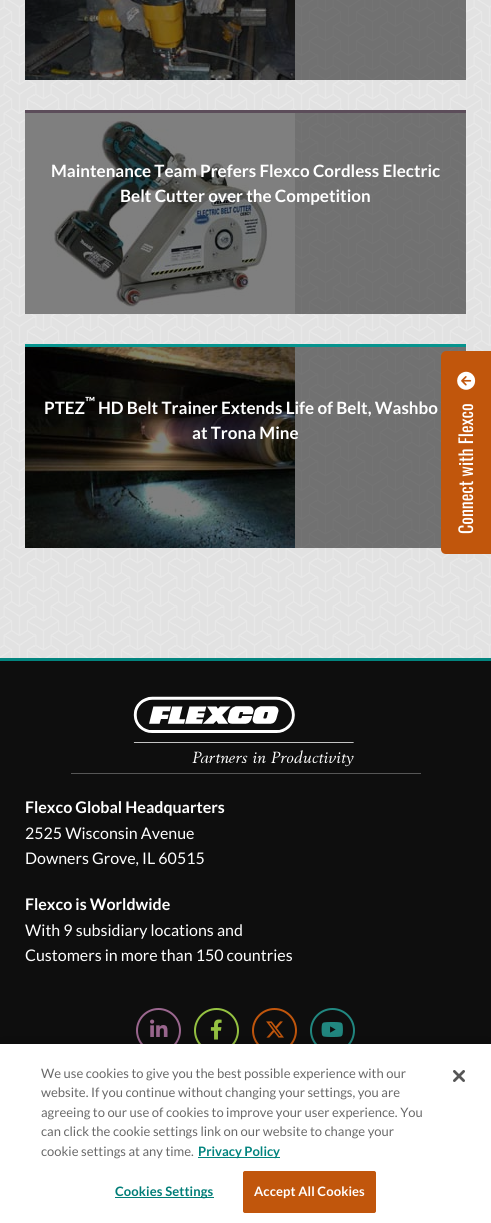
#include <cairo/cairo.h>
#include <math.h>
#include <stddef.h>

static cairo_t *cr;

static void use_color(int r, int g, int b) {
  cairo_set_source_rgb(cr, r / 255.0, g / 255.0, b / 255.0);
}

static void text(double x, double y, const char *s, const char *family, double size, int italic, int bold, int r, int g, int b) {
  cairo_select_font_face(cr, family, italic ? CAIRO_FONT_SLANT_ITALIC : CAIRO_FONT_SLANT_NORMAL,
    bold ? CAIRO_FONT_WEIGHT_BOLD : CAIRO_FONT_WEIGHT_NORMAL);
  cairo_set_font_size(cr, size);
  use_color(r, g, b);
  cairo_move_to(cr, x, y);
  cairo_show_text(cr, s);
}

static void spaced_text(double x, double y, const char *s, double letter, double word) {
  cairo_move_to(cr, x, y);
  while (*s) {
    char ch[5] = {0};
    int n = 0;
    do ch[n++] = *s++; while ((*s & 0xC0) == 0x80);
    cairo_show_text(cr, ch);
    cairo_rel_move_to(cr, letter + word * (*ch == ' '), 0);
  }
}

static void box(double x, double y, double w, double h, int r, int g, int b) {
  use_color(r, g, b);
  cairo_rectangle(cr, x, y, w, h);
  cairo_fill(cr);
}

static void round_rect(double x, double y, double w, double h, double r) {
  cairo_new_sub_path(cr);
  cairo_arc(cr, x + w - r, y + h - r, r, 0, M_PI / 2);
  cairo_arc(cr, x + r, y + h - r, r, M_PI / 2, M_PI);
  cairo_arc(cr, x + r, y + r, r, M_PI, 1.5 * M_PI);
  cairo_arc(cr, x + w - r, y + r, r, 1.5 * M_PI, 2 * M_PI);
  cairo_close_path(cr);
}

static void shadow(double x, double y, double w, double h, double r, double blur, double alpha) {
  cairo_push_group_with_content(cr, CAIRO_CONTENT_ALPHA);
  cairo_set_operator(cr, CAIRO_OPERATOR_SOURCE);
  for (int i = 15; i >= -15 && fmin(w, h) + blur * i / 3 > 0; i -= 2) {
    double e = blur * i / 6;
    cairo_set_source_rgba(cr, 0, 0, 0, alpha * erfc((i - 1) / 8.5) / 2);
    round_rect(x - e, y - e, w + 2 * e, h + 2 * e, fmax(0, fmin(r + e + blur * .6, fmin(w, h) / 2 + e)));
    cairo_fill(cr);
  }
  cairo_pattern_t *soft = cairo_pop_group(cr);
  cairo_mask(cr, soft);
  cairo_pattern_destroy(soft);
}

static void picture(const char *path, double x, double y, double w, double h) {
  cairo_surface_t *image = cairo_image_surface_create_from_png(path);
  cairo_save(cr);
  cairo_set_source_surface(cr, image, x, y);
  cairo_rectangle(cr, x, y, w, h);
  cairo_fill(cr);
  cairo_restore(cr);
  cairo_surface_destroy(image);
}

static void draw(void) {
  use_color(255, 255, 255);
  cairo_paint(cr);
  picture("img_01.png", 0, 0, 491, 658);
  picture("img_02.png", 25, 0, 270, 80);
  cairo_set_source_rgba(cr, 0, 0, 0, 0.5);
  cairo_rectangle(cr, 25, 0, 441, 80);
  cairo_fill(cr);
  box(25, 110, 441, 3, 92, 77, 90);
  picture("img_03.png", 25, 113, 270, 201);
  cairo_set_source_rgba(cr, 0, 0, 0, 0.5);
  cairo_rectangle(cr, 25, 113, 441, 201);
  cairo_fill(cr);
  box(25, 344, 441, 3, 6, 148, 142);
  picture("img_04.png", 25, 347, 270, 201);
  cairo_set_source_rgba(cr, 0, 0, 0, 0.5);
  cairo_rectangle(cr, 25, 347, 441, 201);
  cairo_fill(cr);
  use_color(193, 86, 12);
  cairo_new_path(cr);
  cairo_move_to(cr, 441, 549);
  cairo_line_to(cr, 441, 356);
  cairo_curve_to(cr, 441, 354, 443, 351, 446, 351);
  cairo_line_to(cr, 491, 351);
  cairo_line_to(cr, 491, 554);
  cairo_line_to(cr, 446, 554);
  cairo_curve_to(cr, 443, 554, 441, 552, 441, 549);
  cairo_close_path(cr);
  cairo_fill(cr);
  picture("img_05.png", 457, 371, 19, 19);
  box(0, 661, 491, 383, 14, 14, 14);
  box(0, 658, 491, 3, 2, 132, 126);
  box(71, 773, 350, 1, 86, 86, 86);
  picture("img_06.png", 133, 696, 221, 71);
  cairo_arc(cr, 158.5, 1030.5, 21.5, 0, 2 * M_PI);
  use_color(155, 103, 143);
  cairo_stroke(cr);
  picture("img_07.png", 150, 1019, 18, 18);
  cairo_arc(cr, 216.5, 1030.5, 21.5, 0, 2 * M_PI);
  use_color(150, 195, 66);
  cairo_stroke(cr);
  picture("img_08.png", 210, 1019, 12, 21);
  cairo_arc(cr, 274.5, 1030.5, 21.5, 0, 2 * M_PI);
  use_color(193, 86, 12);
  cairo_stroke(cr);
  picture("img_09.png", 266, 1021, 18, 17);
  cairo_arc(cr, 332.5, 1030.5, 21.5, 0, 2 * M_PI);
  use_color(33, 136, 129);
  cairo_stroke(cr);
  picture("img_10.png", 321, 1022, 22, 15);
  use_color(0, 0, 0);
  shadow(0, 1044, 491, 179, 0, 9, 0.2);
  box(0, 1044, 491, 179, 255, 255, 255);
  box(198, 1157, 82, 1, 2, 132, 126);
  box(115, 1197, 99, 1, 0, 125, 119);
  use_color(193, 86, 12);
  round_rect(243.5, 1171.5, 132, 41, 1.5);
  cairo_fill_preserve(cr);
  cairo_set_line_width(cr, 1);
  cairo_stroke(cr);
  picture("img_11.png", 453, 1070, 12, 12);
  text(51, 177, "Maintenance Team Prefers Flexco Cordless Electric", "Lato", 17, 0, 1, 255, 255, 255);
  text(120, 202, "Belt Cutter over the Competition", "Lato", 17, 0, 1, 255, 255, 255);
  text(85, 407, "™", "Lato", 14, 0, 1, 255, 255, 255);
  text(44, 414, "PTEZ", "Lato", 17, 0, 1, 255, 255, 255);
  text(98, 414, "HD Belt Trainer Extends Life of Belt, Washbo", "Lato", 17, 0, 1, 255, 255, 255);
  text(192, 439, "at Trona Mine", "Lato", 17, 0, 1, 255, 255, 255);
  cairo_save(cr);
  cairo_translate(cr, 473, 534);
  cairo_rotate(cr, -90 * M_PI / 180);
  text(0, 0, "Connect with Flexco", "Oswald", 18, 0, 0, 255, 255, 255);
  cairo_restore(cr);
  text(25, 813, "Flexco Global Headquarters", "Lato", 16, 0, 1, 255, 255, 255);
  text(25, 839, "2525 Wisconsin Avenue", "Lato", 16, 0, 0, 255, 255, 255);
  text(25, 864, "Downers Grove, IL 60515", "Lato", 16, 0, 0, 255, 255, 255);
  text(25, 910, "Flexco is Worldwide", "Lato", 16, 0, 1, 255, 255, 255);
  text(25, 936, "With 9 subsidiary locations and", "Lato", 16, 0, 0, 255, 255, 255);
  text(25, 961, "Customers in more than 150 countries", "Lato", 16, 0, 0, 255, 255, 255);
  text(41, 1078, "We use cookies to give you the best possible experience with our", "Lato", 13, 0, 0, 105, 105, 105);
  text(41, 1097, "website. If you continue without changing your settings, you are", "Lato", 13, 0, 0, 105, 105, 105);
  text(41, 1117, "agreeing to our use of cookies to improve your user experience. You", "Lato", 13, 0, 0, 105, 105, 105);
  text(41, 1136, "can click the cookie settings link on our website to change your", "Lato", 13, 0, 0, 105, 105, 105);
  text(41, 1156, "cookie settings at any time.", "Lato", 13, 0, 0, 105, 105, 105);
  text(198, 1156, "Privacy Policy", "Lato", 13, 0, 1, 2, 132, 126);
  use_color(0, 125, 119);
  spaced_text(115, 1196, "Cookies Settings", 0.1, 0);
  use_color(255, 255, 255);
  spaced_text(254, 1196, "Accept All Cookies", 0.1, 0);
}

int main(void) {
  cairo_surface_t *surface = cairo_image_surface_create(CAIRO_FORMAT_RGB24, 491, 1223);
  cr = cairo_create(surface);
  cairo_font_options_t *options = cairo_font_options_create();
  cairo_font_options_set_hint_metrics(options, CAIRO_HINT_METRICS_OFF);
  cairo_font_options_set_hint_style(options, CAIRO_HINT_STYLE_NONE);
  cairo_set_font_options(cr, options);
  cairo_set_miter_limit(cr, 4);
  draw();
  cairo_surface_write_to_png(surface, "out.png");
  cairo_font_options_destroy(options);
  cairo_destroy(cr);
  cairo_surface_destroy(surface);
  return 0;
}
